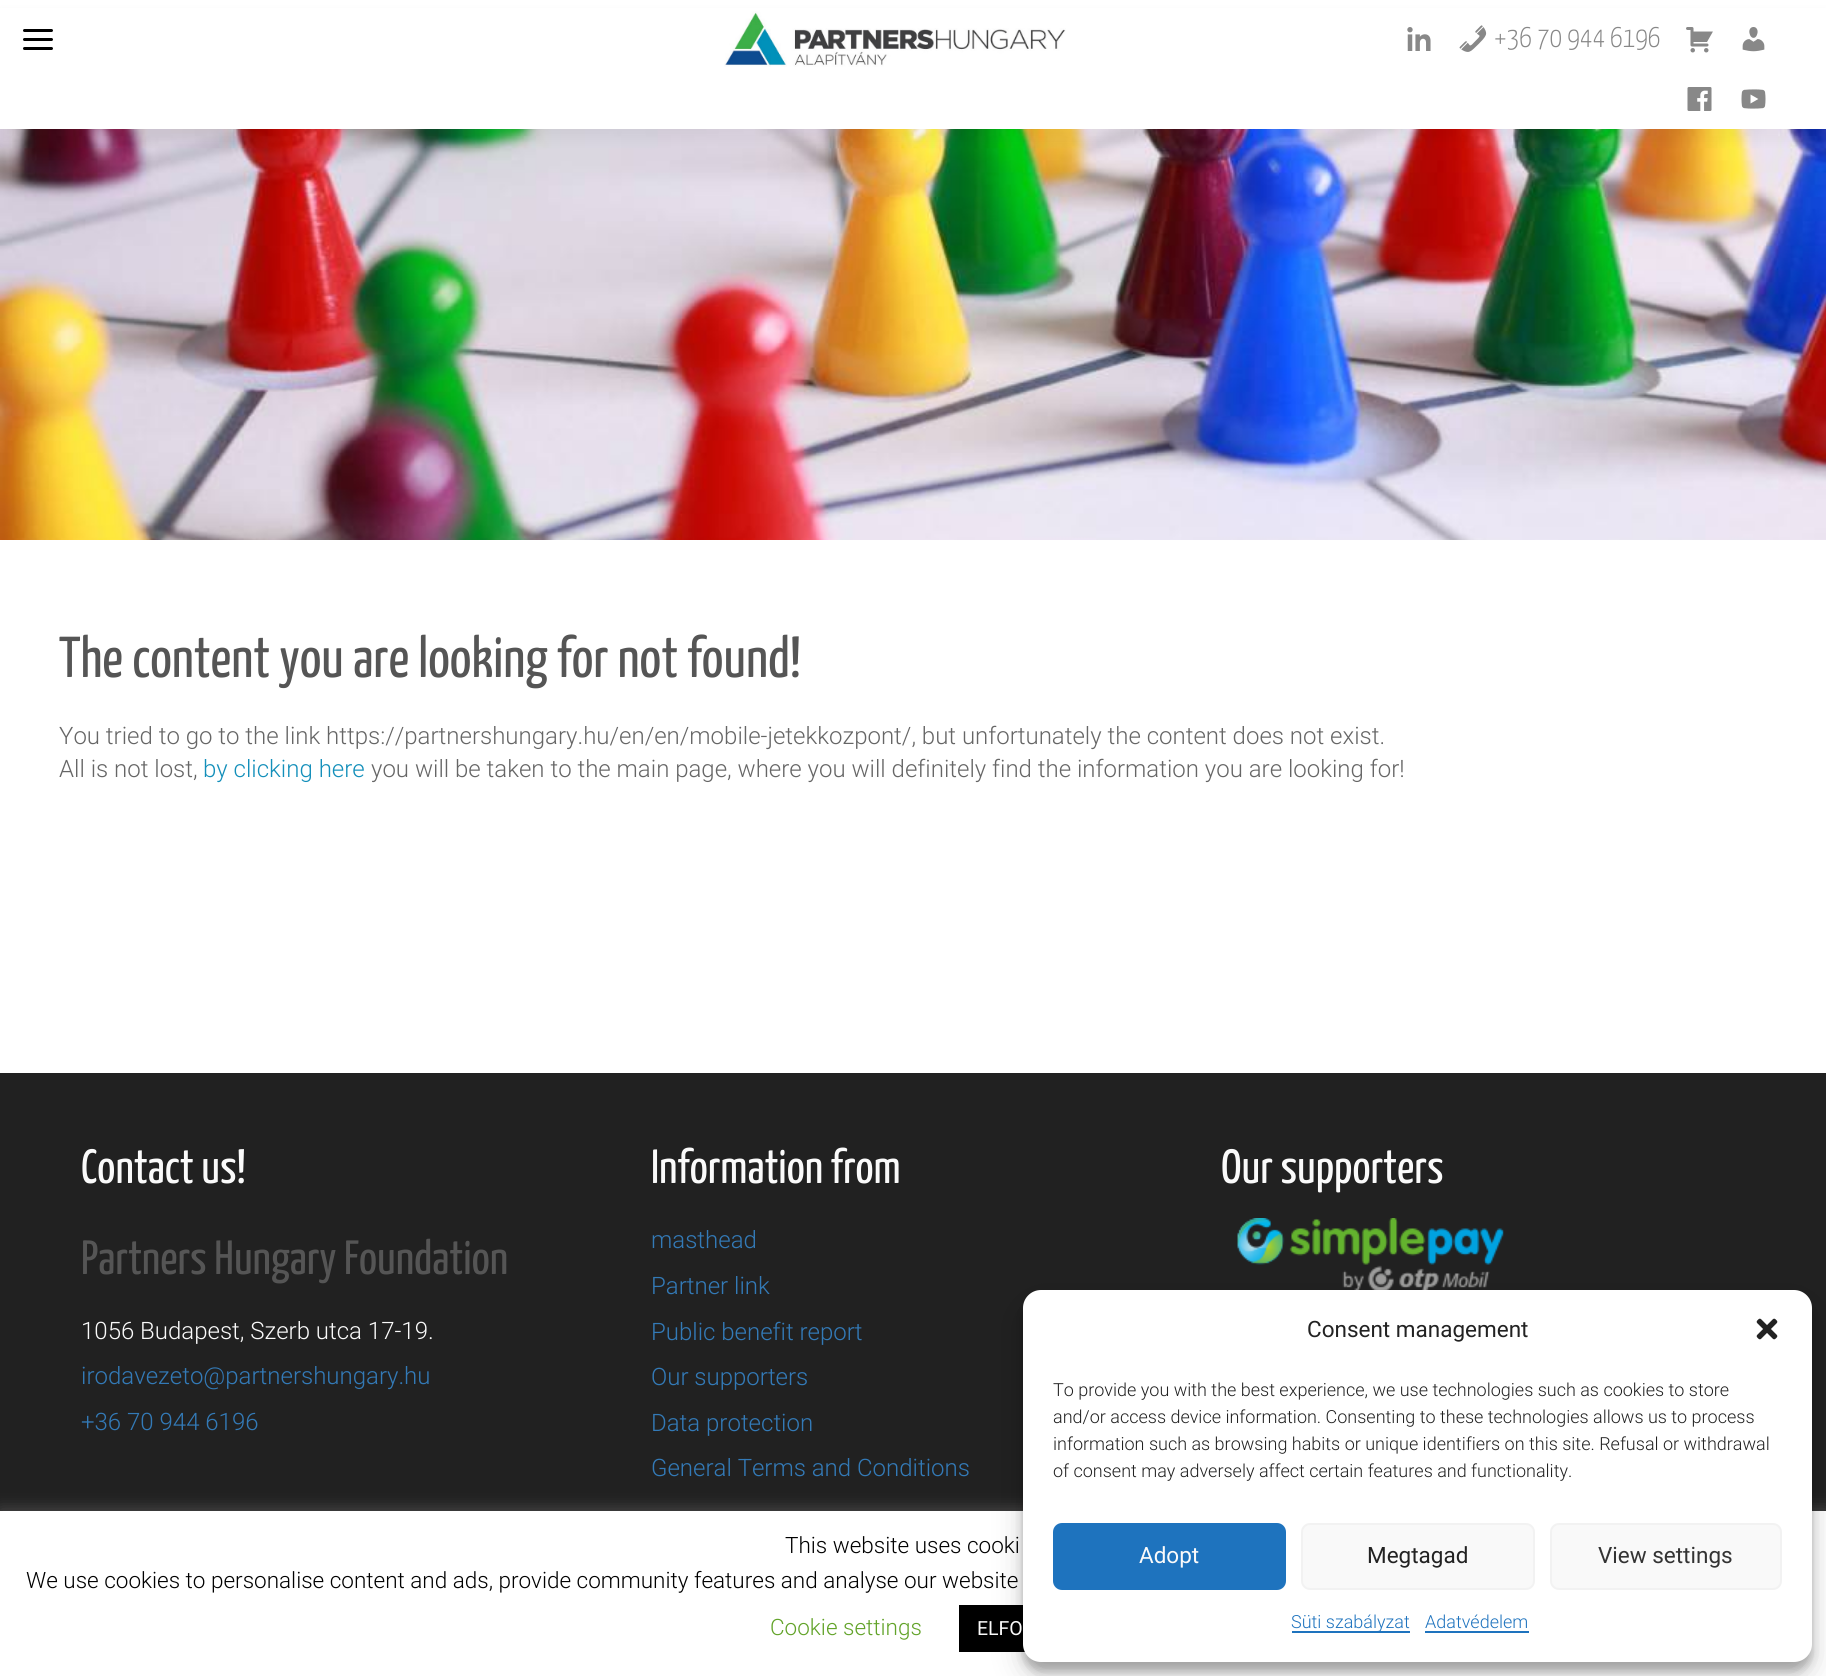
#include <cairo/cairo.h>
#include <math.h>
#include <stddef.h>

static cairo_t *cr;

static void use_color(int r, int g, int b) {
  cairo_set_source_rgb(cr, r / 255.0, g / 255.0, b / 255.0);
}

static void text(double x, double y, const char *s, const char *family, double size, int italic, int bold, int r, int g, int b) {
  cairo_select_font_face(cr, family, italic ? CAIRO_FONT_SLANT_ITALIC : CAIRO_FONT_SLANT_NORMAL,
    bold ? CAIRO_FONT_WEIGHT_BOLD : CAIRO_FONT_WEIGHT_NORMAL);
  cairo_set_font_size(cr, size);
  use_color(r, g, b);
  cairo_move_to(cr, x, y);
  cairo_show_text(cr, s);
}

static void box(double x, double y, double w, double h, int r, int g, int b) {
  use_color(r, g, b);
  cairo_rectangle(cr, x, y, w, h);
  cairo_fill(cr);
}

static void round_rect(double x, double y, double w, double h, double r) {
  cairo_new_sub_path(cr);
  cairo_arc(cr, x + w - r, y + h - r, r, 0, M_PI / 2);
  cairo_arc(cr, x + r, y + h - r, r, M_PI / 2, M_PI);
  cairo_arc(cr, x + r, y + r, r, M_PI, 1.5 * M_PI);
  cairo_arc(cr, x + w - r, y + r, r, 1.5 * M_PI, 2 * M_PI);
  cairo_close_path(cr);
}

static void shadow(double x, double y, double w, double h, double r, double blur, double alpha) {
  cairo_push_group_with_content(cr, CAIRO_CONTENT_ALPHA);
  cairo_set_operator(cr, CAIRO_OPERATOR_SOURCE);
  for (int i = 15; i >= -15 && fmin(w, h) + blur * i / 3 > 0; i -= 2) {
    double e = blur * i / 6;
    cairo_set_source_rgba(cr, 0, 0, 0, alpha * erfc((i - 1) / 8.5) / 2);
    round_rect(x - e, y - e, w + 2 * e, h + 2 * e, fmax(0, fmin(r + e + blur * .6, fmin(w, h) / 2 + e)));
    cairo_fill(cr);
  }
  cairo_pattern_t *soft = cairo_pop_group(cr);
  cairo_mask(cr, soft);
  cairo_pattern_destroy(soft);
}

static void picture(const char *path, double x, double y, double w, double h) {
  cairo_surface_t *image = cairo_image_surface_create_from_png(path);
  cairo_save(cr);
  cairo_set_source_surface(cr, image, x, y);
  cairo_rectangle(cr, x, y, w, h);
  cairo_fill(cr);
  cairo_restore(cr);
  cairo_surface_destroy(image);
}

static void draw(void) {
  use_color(255, 255, 255);
  cairo_paint(cr);
  picture("img_08.png", 0, 129, 1826, 411);
  use_color(0, 0, 0);
  shadow(0, 12, 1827, 129, 0, 6, 0.04);
  box(0, 8, 1826, 121, 255, 255, 255);
  use_color(0, 0, 0);
  round_rect(23, 29, 30, 3, 1.5);
  cairo_fill(cr);
  round_rect(23, 38, 30, 3, 1.5);
  cairo_fill(cr);
  round_rect(23, 47, 30, 3, 1.5);
  cairo_fill(cr);
  picture("img_01.png", 724, 11, 342, 56);
  picture("img_02.png", 1407, 27, 24, 24);
  picture("img_03.png", 1459, 25, 28, 27);
  picture("img_04.png", 1686, 27, 27, 26);
  picture("img_05.png", 1742, 27, 23, 25);
  picture("img_06.png", 1687, 87, 25, 24);
  picture("img_07.png", 1741, 89, 25, 20);
  box(0, 1073, 1826, 438, 33, 33, 33);
  picture("img_09.png", 1237, 1218, 267, 72);
  use_color(172, 171, 171);
  shadow(0, 1509, 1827, 167, 0, 7.5, 0.3);
  box(0, 1511, 1826, 165, 255, 255, 255);
  box(959, 1605, 66, 47, 0, 0, 0);
  use_color(0, 0, 0);
  shadow(1023, 1299, 789, 372, 18, 4.5, 0.23);
  shadow(1023, 1305, 789, 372, 18, 15, 0.19);
  use_color(255, 255, 255);
  round_rect(1023, 1290, 789, 372, 18);
  cairo_fill(cr);
  picture("img_10.png", 1756, 1318, 22, 22);
  use_color(30, 115, 190);
  round_rect(1054, 1524, 231, 65, 8);
  cairo_fill_preserve(cr);
  cairo_stroke(cr);
  use_color(249, 249, 249);
  round_rect(1302, 1524, 232, 65, 8);
  cairo_fill_preserve(cr);
  use_color(242, 242, 242);
  cairo_stroke(cr);
  use_color(249, 249, 249);
  round_rect(1551, 1524, 230, 65, 8);
  cairo_fill_preserve(cr);
  use_color(242, 242, 242);
  cairo_stroke(cr);
  box(1292, 1631, 118, 2, 30, 115, 190);
  box(1425, 1631, 104, 2, 30, 115, 190);
  text(1494, 47, "+36 70 944 6196", "Yanone Kaffeesatz Light", 28.75, 0, 0, 136, 136, 136);
  text(59, 677, "The content you are looking for not found!", "Yanone Kaffeesatz", 57.6, 0, 0, 85, 85, 85);
  text(59, 744, "You tried to go to the link https://partnershungary.hu/en/en/mobile-jetekkozpont/, but unfortunately the content does not exist.", "Roboto Light", 24, 0, 0, 102, 102, 102);
  text(59, 777, "All is not lost,", "Roboto Light", 24, 0, 0, 102, 102, 102);
  text(203, 777, "by clicking here", "Roboto Light", 24, 0, 0, 19, 143, 186);
  text(371, 777, "you will be taken to the main page, where you will definitely find the information you are looking for!", "Roboto Light", 24, 0, 0, 102, 102, 102);
  text(81, 1183, "Contact us!", "Yanone Kaffeesatz", 48, 0, 0, 250, 250, 250);
  text(81, 1274, "Partners Hungary Foundation", "Yanone Kaffeesatz", 48, 0, 0, 85, 85, 85);
  text(81, 1339, "1056 Budapest, Szerb utca 17-19.", "Roboto Light", 24, 0, 0, 250, 250, 250);
  text(81, 1384, "irodavezeto@partnershungary.hu", "Roboto Light", 24, 0, 0, 51, 122, 183);
  text(81, 1430, "+36 70 944 6196", "Roboto Light", 24, 0, 0, 51, 122, 183);
  text(651, 1183, "Information from", "Yanone Kaffeesatz", 48, 0, 0, 250, 250, 250);
  text(651, 1248, "masthead", "Roboto Light", 24, 0, 0, 51, 122, 183);
  text(651, 1294, "Partner link", "Roboto Light", 24, 0, 0, 51, 122, 183);
  text(651, 1340, "Public benefit report", "Roboto Light", 24, 0, 0, 51, 122, 183);
  text(651, 1385, "Our supporters", "Roboto Light", 24, 0, 0, 51, 122, 183);
  text(651, 1431, "Data protection", "Roboto Light", 24, 0, 0, 51, 122, 183);
  text(651, 1476, "General Terms and Conditions", "Roboto Light", 24, 0, 0, 51, 122, 183);
  text(1221, 1183, "Our supporters", "Yanone Kaffeesatz", 48, 0, 0, 250, 250, 250);
  text(785, 1553, "This website uses cooki", "Roboto Light", 22.5, 0, 0, 0, 0, 0);
  text(26, 1588, "We use cookies to personalise content and ads, provide community features and analyse our website", "Roboto Light", 22.5, 0, 0, 0, 0, 0);
  text(770, 1635, "Cookie settings", "Roboto Light", 22.5, 0, 0, 98, 163, 41);
  text(977, 1635, "ELFO", "Roboto", 19.5, 0, 0, 250, 250, 250);
  text(1307, 1337, "Consent management", "Roboto", 22.5, 0, 0, 34, 34, 34);
  text(1053, 1396, "To provide you with the best experience, we use technologies such as cookies to store", "Roboto Light", 18, 0, 0, 34, 34, 34);
  text(1053, 1423, "and/or access device information. Consenting to these technologies allows us to process", "Roboto Light", 18, 0, 0, 34, 34, 34);
  text(1053, 1450, "information such as browsing habits or unique identifiers on this site. Refusal or withdrawal", "Roboto Light", 18, 0, 0, 34, 34, 34);
  text(1053, 1477, "of consent may adversely affect certain features and functionality.", "Roboto Light", 18, 0, 0, 34, 34, 34);
  text(1139, 1563, "Adopt", "Roboto", 22.5, 0, 0, 250, 250, 250);
  text(1367, 1563, "Megtagad", "Roboto", 22.5, 0, 0, 34, 34, 34);
  text(1598, 1563, "View settings", "Roboto", 22.5, 0, 0, 51, 51, 51);
  text(1291, 1628, "Süti szabályzat", "Roboto Light", 18, 0, 0, 30, 115, 190);
  text(1425, 1628, "Adatvédelem", "Roboto Light", 18, 0, 0, 30, 115, 190);
}

int main(void) {
  cairo_surface_t *surface = cairo_image_surface_create(CAIRO_FORMAT_RGB24, 1826, 1676);
  cr = cairo_create(surface);
  cairo_font_options_t *options = cairo_font_options_create();
  cairo_font_options_set_hint_metrics(options, CAIRO_HINT_METRICS_OFF);
  cairo_font_options_set_hint_style(options, CAIRO_HINT_STYLE_NONE);
  cairo_set_font_options(cr, options);
  cairo_set_miter_limit(cr, 4);
  draw();
  cairo_surface_write_to_png(surface, "out.png");
  cairo_font_options_destroy(options);
  cairo_destroy(cr);
  cairo_surface_destroy(surface);
  return 0;
}
